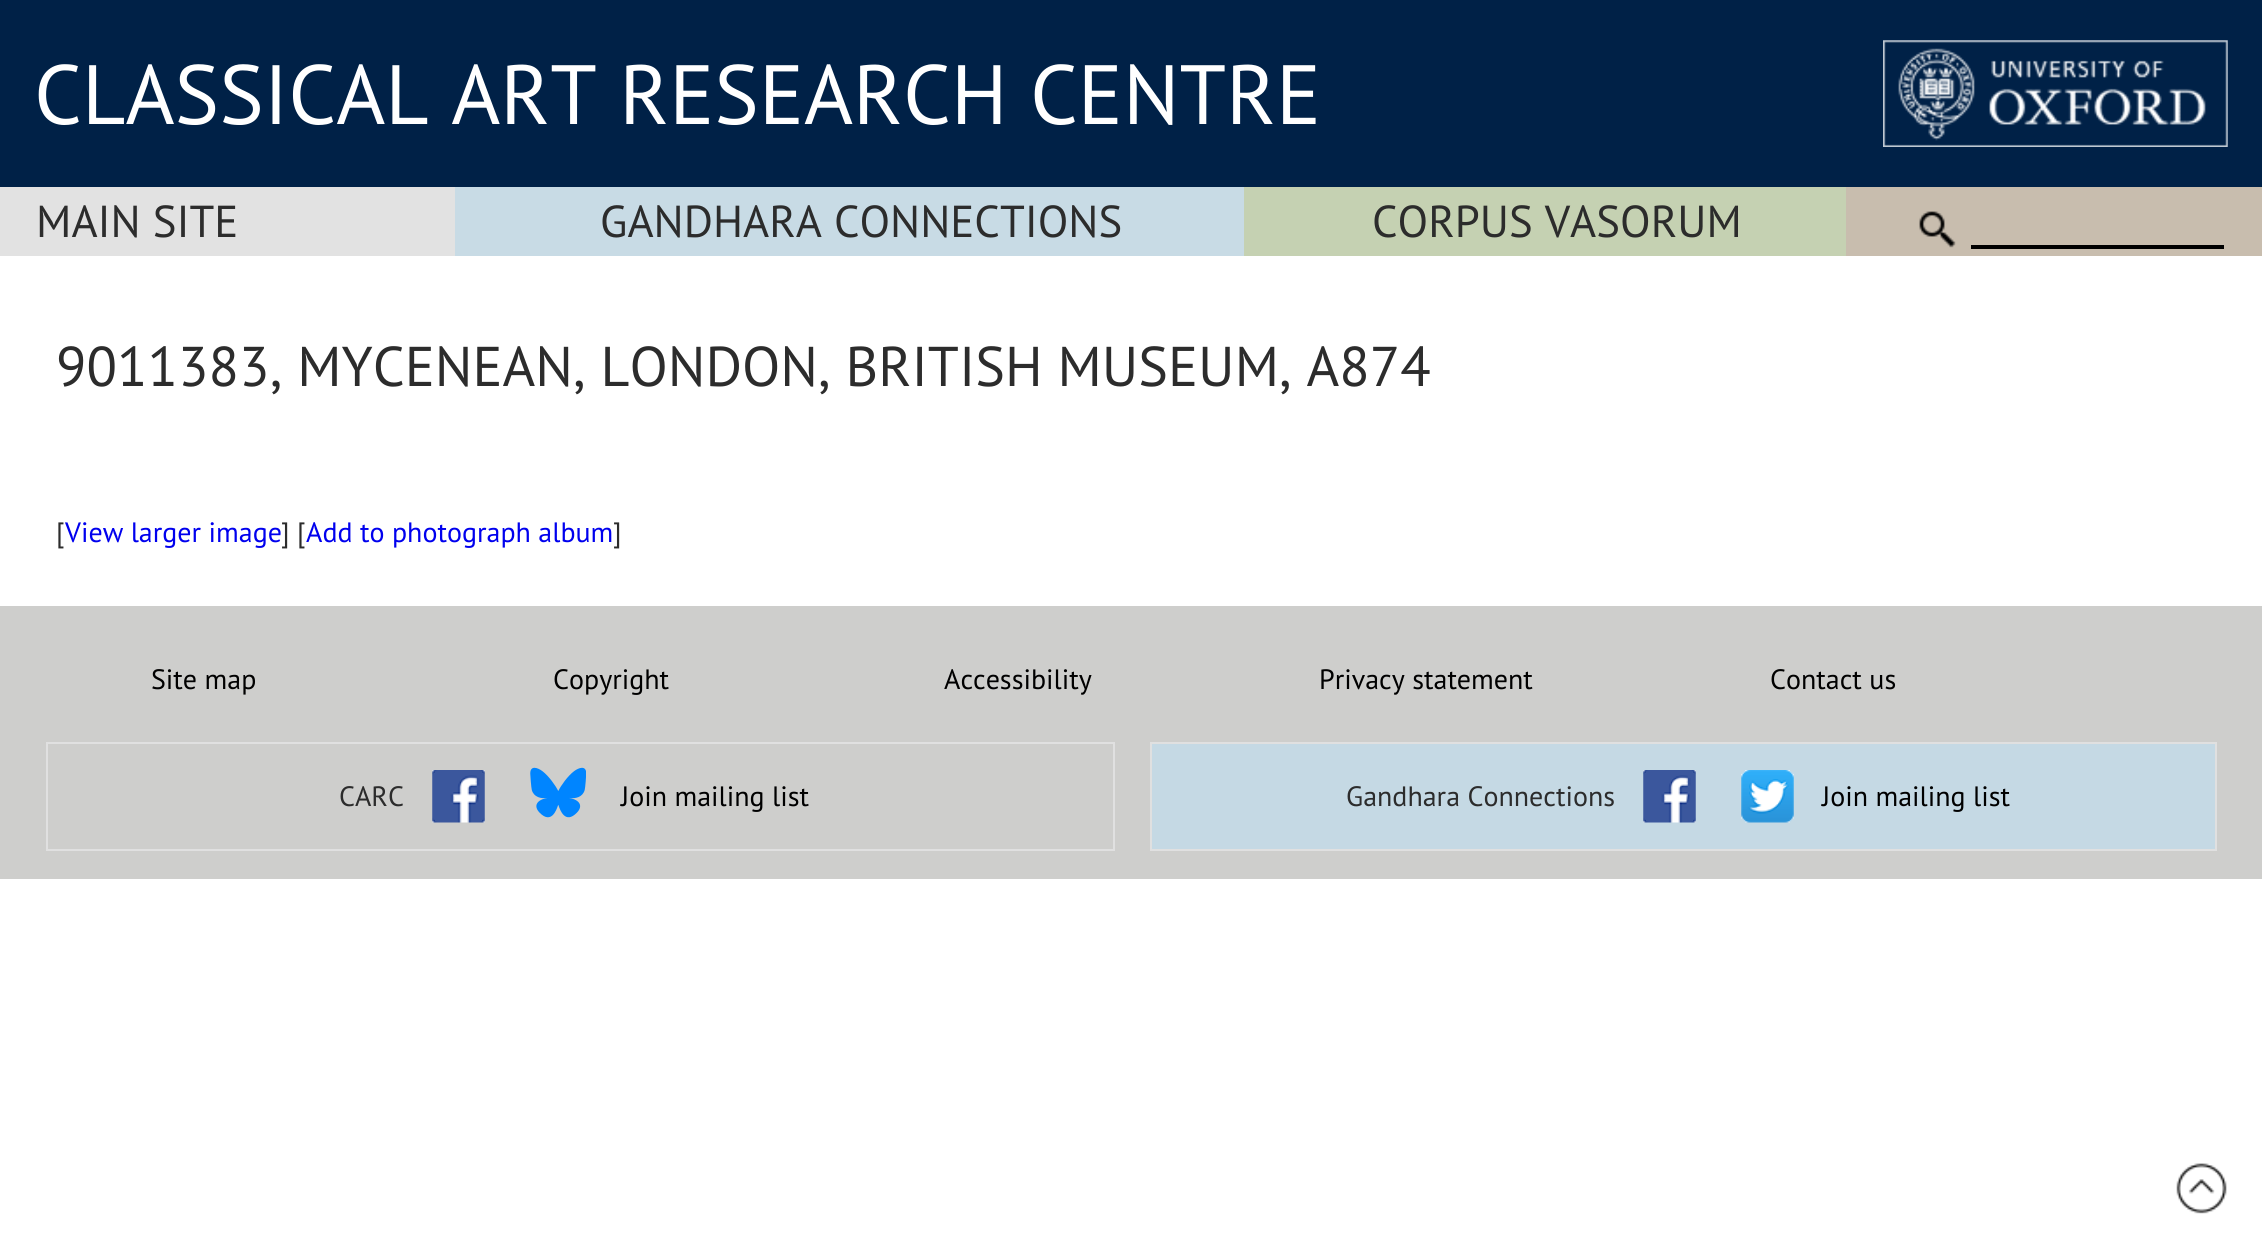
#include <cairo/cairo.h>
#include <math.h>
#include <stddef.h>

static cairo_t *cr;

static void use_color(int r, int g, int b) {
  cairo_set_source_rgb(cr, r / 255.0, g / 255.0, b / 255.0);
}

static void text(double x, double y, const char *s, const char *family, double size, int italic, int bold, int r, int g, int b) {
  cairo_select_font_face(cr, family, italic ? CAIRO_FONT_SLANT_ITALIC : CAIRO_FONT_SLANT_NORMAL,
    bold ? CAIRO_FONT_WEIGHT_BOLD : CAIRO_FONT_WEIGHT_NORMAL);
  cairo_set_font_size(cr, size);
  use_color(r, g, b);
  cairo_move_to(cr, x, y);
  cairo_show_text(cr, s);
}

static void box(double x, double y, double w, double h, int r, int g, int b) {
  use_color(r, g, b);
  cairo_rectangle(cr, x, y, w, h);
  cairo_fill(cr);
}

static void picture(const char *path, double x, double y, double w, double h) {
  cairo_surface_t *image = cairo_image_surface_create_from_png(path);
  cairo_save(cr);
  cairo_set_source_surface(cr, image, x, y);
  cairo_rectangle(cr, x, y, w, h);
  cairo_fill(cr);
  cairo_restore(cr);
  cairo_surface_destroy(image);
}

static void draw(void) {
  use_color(255, 255, 255);
  cairo_paint(cr);
  box(0, 0, 2262, 187, 0, 33, 71);
  picture("img_01.png", 1883, 40, 345, 107);
  box(0, 187, 455, 69, 226, 226, 226);
  box(455, 187, 789, 69, 200, 219, 229);
  box(1244, 187, 602, 69, 197, 209, 178);
  box(1846, 187, 416, 69, 200, 189, 174);
  picture("img_02.png", 1919, 211, 37, 37);
  box(1971, 245, 253, 4, 0, 0, 0);
  box(0, 606, 2262, 273, 206, 206, 204);
  cairo_rectangle(cr, 47, 743, 1067, 107);
  use_color(224, 224, 224);
  cairo_stroke(cr);
  picture("img_03.png", 432, 770, 53, 53);
  picture("img_04.png", 530, 767, 56, 51);
  use_color(197, 217, 228);
  cairo_rectangle(cr, 1151, 743, 1065, 107);
  cairo_fill_preserve(cr);
  use_color(224, 224, 224);
  cairo_stroke(cr);
  picture("img_05.png", 1643, 770, 53, 53);
  picture("img_06.png", 1741, 770, 53, 53);
  picture("img_07.png", 2176, 1163, 51, 51);
  text(34, 124, "CLASSICAL ART RESEARCH CENTRE", "PT Sans", 84, 0, 0, 255, 255, 255);
  text(36, 237, "MAIN SITE", "PT Sans", 44.75, 0, 0, 44, 44, 44);
  text(600, 237, "GANDHARA CONNECTIONS", "PT Sans", 44.75, 0, 0, 44, 44, 44);
  text(1372, 237, "CORPUS VASORUM", "PT Sans", 44.75, 0, 0, 44, 44, 44);
  text(56, 386, "9011383, MYCENEAN, LONDON, BRITISH MUSEUM, A874", "PT Sans", 56, 0, 0, 44, 44, 44);
  text(56, 542, "[", "PT Sans", 28, 0, 0, 44, 44, 44);
  text(65, 542, "View larger image", "PT Sans", 28, 0, 0, 0, 0, 238);
  text(281, 542, "] [", "PT Sans", 28, 0, 0, 44, 44, 44);
  text(306, 542, "Add to photograph album", "PT Sans", 28, 0, 0, 0, 0, 238);
  text(613, 542, "]", "PT Sans", 28, 0, 0, 44, 44, 44);
  text(151, 689, "Site map", "PT Sans", 28, 0, 0, 0, 0, 0);
  text(553, 689, "Copyright", "PT Sans", 28, 0, 0, 0, 0, 0);
  text(944, 689, "Accessibility", "PT Sans", 28, 0, 0, 0, 0, 0);
  text(1319, 689, "Privacy statement", "PT Sans", 28, 0, 0, 0, 0, 0);
  text(1770, 689, "Contact us", "PT Sans", 28, 0, 0, 0, 0, 0);
  text(339, 806, "CARC", "PT Sans", 28, 0, 0, 44, 44, 44);
  text(621, 806, "Join mailing list", "PT Sans", 28, 0, 0, 0, 0, 0);
  text(1346, 806, "Gandhara Connections", "PT Sans", 28, 0, 0, 44, 44, 44);
  text(1822, 806, "Join mailing list", "PT Sans", 28, 0, 0, 0, 0, 0);
}

int main(void) {
  cairo_surface_t *surface = cairo_image_surface_create(CAIRO_FORMAT_RGB24, 2262, 1255);
  cr = cairo_create(surface);
  cairo_font_options_t *options = cairo_font_options_create();
  cairo_font_options_set_hint_metrics(options, CAIRO_HINT_METRICS_OFF);
  cairo_font_options_set_hint_style(options, CAIRO_HINT_STYLE_NONE);
  cairo_set_font_options(cr, options);
  cairo_set_miter_limit(cr, 4);
  draw();
  cairo_surface_write_to_png(surface, "out.png");
  cairo_font_options_destroy(options);
  cairo_destroy(cr);
  cairo_surface_destroy(surface);
  return 0;
}
